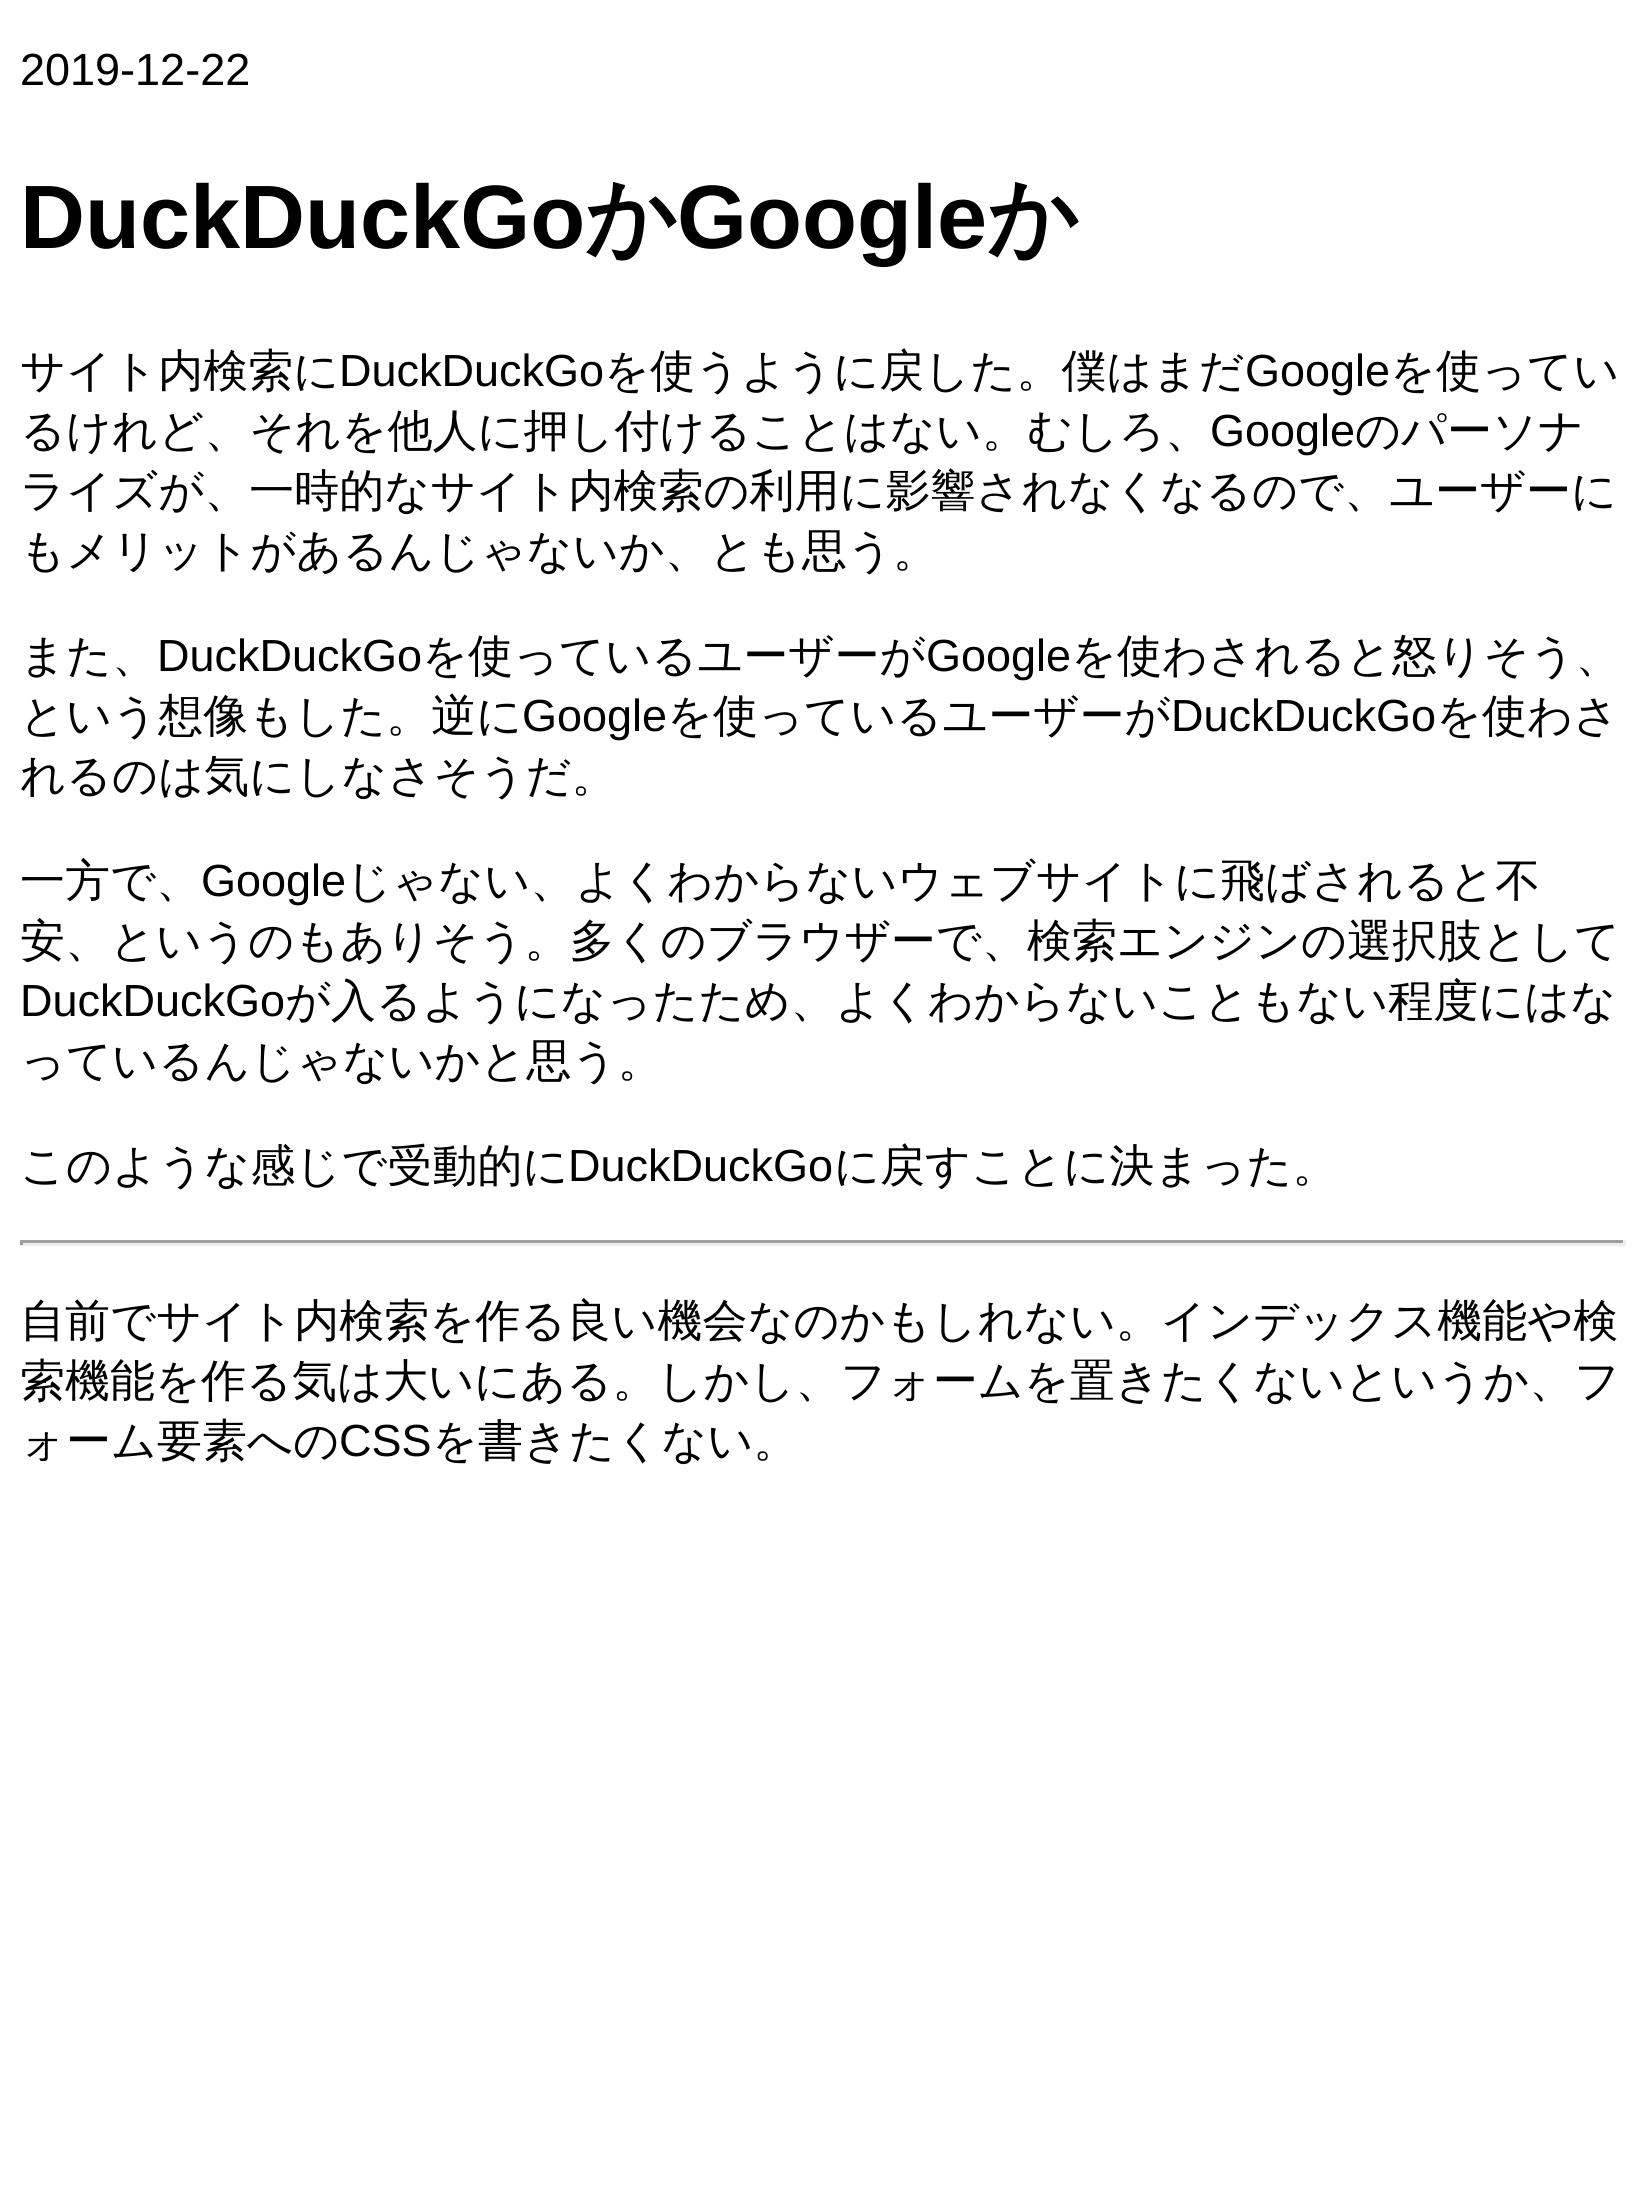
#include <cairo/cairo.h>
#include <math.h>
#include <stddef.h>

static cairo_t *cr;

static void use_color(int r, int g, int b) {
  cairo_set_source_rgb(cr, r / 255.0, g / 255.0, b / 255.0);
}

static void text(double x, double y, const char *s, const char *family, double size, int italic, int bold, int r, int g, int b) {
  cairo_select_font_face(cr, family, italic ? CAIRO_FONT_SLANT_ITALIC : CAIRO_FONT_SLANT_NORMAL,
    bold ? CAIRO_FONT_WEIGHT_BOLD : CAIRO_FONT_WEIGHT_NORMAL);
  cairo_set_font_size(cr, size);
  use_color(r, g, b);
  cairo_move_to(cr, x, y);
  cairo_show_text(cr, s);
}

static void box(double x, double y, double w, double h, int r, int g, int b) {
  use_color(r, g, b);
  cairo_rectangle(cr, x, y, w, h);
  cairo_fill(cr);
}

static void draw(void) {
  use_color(255, 255, 255);
  cairo_paint(cr);
  box(20, 1240, 1605, 3, 159, 159, 159);
  box(1623, 1240, 3, 5, 238, 238, 238);
  box(20, 1243, 1605, 3, 238, 238, 238);
  box(20, 1240, 3, 5, 159, 159, 159);
  text(20, 85, "2019-12-22", "Liberation Sans", 45, 0, 0, 0, 0, 0);
  text(20, 248, "DuckDuckGo", "Liberation Sans", 90, 0, 1, 0, 0, 0);
  text(585, 248, "か", "WenQuanYi Zen Hei", 90, 0, 1, 0, 0, 0);
  text(677, 248, "Google", "Liberation Sans", 90, 0, 1, 0, 0, 0);
  text(987, 248, "か", "WenQuanYi Zen Hei", 90, 0, 1, 0, 0, 0);
  text(20, 386, "サイト内検索に", "WenQuanYi Zen Hei Medium", 45, 0, 0, 0, 0, 0);
  text(339, 386, "DuckDuckGo", "Liberation Sans", 45, 0, 0, 0, 0, 0);
  text(604, 386, "を使うように戻した。僕はまだ", "WenQuanYi Zen Hei Medium", 45, 0, 0, 0, 0, 0);
  text(1245, 386, "Google", "Liberation Sans", 45, 0, 0, 0, 0, 0);
  text(1390, 386, "を使ってい", "WenQuanYi Zen Hei Medium", 45, 0, 0, 0, 0, 0);
  text(20, 446, "るけれど、それを他人に押し付けることはない。むしろ、", "WenQuanYi Zen Hei Medium", 45, 0, 0, 0, 0, 0);
  text(1210, 446, "Google", "Liberation Sans", 45, 0, 0, 0, 0, 0);
  text(1355, 446, "のパーソナ", "WenQuanYi Zen Hei Medium", 45, 0, 0, 0, 0, 0);
  text(20, 506, "ライズが、一時的なサイト内検索の利用に影響されなくなるので、ユーザーに", "WenQuanYi Zen Hei Medium", 45, 0, 0, 0, 0, 0);
  text(20, 566, "もメリットがあるんじゃないか、とも思う。", "WenQuanYi Zen Hei Medium", 45, 0, 0, 0, 0, 0);
  text(20, 671, "また、", "WenQuanYi Zen Hei Medium", 45, 0, 0, 0, 0, 0);
  text(157, 671, "DuckDuckGo", "Liberation Sans", 45, 0, 0, 0, 0, 0);
  text(422, 671, "を使っているユーザーが", "WenQuanYi Zen Hei Medium", 45, 0, 0, 0, 0, 0);
  text(926, 671, "Google", "Liberation Sans", 45, 0, 0, 0, 0, 0);
  text(1071, 671, "を使わされると怒りそう、", "WenQuanYi Zen Hei Medium", 45, 0, 0, 0, 0, 0);
  text(20, 731, "という想像もした。逆に", "WenQuanYi Zen Hei Medium", 45, 0, 0, 0, 0, 0);
  text(522, 731, "Google", "Liberation Sans", 45, 0, 0, 0, 0, 0);
  text(667, 731, "を使っているユーザーが", "WenQuanYi Zen Hei Medium", 45, 0, 0, 0, 0, 0);
  text(1171, 731, "DuckDuckGo", "Liberation Sans", 45, 0, 0, 0, 0, 0);
  text(1436, 731, "を使わさ", "WenQuanYi Zen Hei Medium", 45, 0, 0, 0, 0, 0);
  text(20, 791, "れるのは気にしなさそうだ。", "WenQuanYi Zen Hei Medium", 45, 0, 0, 0, 0, 0);
  text(20, 896, "一方で、", "WenQuanYi Zen Hei Medium", 45, 0, 0, 0, 0, 0);
  text(201, 896, "Google", "Liberation Sans", 45, 0, 0, 0, 0, 0);
  text(346, 896, "じゃない、よくわからないウェブサイトに飛ばされると不", "WenQuanYi Zen Hei Medium", 45, 0, 0, 0, 0, 0);
  text(20, 956, "安、というのもありそう。多くのブラウザーで、検索エンジンの選択肢として", "WenQuanYi Zen Hei Medium", 45, 0, 0, 0, 0, 0);
  text(20, 1016, "DuckDuckGo", "Liberation Sans", 45, 0, 0, 0, 0, 0);
  text(285, 1016, "が入るようになったため、よくわからないこともない程度にはな", "WenQuanYi Zen Hei Medium", 45, 0, 0, 0, 0, 0);
  text(20, 1076, "っているんじゃないかと思う。", "WenQuanYi Zen Hei Medium", 45, 0, 0, 0, 0, 0);
  text(20, 1181, "このような感じで受動的に", "WenQuanYi Zen Hei Medium", 45, 0, 0, 0, 0, 0);
  text(568, 1181, "DuckDuckGo", "Liberation Sans", 45, 0, 0, 0, 0, 0);
  text(834, 1181, "に戻すことに決まった。", "WenQuanYi Zen Hei Medium", 45, 0, 0, 0, 0, 0);
  text(20, 1336, "自前でサイト内検索を作る良い機会なのかもしれない。インデックス機能や検", "WenQuanYi Zen Hei Medium", 45, 0, 0, 0, 0, 0);
  text(20, 1396, "索機能を作る気は大いにある。しかし、フォームを置きたくないというか、フ", "WenQuanYi Zen Hei Medium", 45, 0, 0, 0, 0, 0);
  text(20, 1456, "ォーム要素への", "WenQuanYi Zen Hei Medium", 45, 0, 0, 0, 0, 0);
  text(339, 1456, "CSS", "Liberation Sans", 45, 0, 0, 0, 0, 0);
  text(432, 1456, "を書きたくない。", "WenQuanYi Zen Hei Medium", 45, 0, 0, 0, 0, 0);
}

int main(void) {
  cairo_surface_t *surface = cairo_image_surface_create(CAIRO_FORMAT_RGB24, 1643, 2203);
  cr = cairo_create(surface);
  cairo_font_options_t *options = cairo_font_options_create();
  cairo_font_options_set_hint_metrics(options, CAIRO_HINT_METRICS_OFF);
  cairo_font_options_set_hint_style(options, CAIRO_HINT_STYLE_NONE);
  cairo_set_font_options(cr, options);
  cairo_set_miter_limit(cr, 4);
  draw();
  cairo_surface_write_to_png(surface, "out.png");
  cairo_font_options_destroy(options);
  cairo_destroy(cr);
  cairo_surface_destroy(surface);
  return 0;
}
